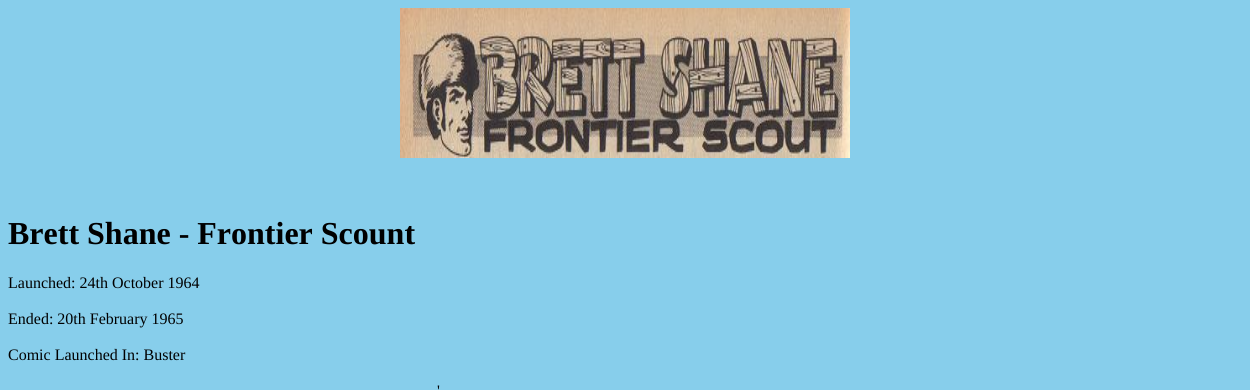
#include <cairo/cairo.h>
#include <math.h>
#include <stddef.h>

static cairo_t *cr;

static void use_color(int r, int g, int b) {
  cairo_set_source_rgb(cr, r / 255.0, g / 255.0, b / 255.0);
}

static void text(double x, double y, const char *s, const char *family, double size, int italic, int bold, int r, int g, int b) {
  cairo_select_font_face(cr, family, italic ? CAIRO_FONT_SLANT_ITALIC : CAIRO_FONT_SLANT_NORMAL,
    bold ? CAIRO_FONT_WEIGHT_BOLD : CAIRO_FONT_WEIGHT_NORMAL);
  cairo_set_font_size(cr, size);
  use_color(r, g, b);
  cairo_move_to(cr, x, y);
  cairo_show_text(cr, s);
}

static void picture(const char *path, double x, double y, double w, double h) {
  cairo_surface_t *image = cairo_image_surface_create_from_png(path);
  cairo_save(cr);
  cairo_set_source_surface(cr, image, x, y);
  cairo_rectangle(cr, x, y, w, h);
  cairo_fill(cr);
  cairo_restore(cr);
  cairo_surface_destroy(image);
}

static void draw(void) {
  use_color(135, 206, 235);
  cairo_paint(cr);
  picture("img_01.png", 400, 8, 450, 150);
  text(8, 244, "Brett Shane - Frontier Scount", "Liberation Serif", 32, 0, 1, 0, 0, 0);
  text(8, 288, "Launched: 24th October 1964", "Liberation Serif", 16, 0, 0, 0, 0, 0);
  text(8, 324, "Ended: 20th February 1965", "Liberation Serif", 16, 0, 0, 0, 0, 0);
  text(8, 360, "Comic Launched In: Buster", "Liberation Serif", 16, 0, 0, 0, 0, 0);
  text(437, 396, "'", "Liberation Serif", 16, 0, 0, 0, 0, 0);
}

int main(void) {
  cairo_surface_t *surface = cairo_image_surface_create(CAIRO_FORMAT_RGB24, 1250, 390);
  cr = cairo_create(surface);
  cairo_font_options_t *options = cairo_font_options_create();
  cairo_font_options_set_hint_metrics(options, CAIRO_HINT_METRICS_OFF);
  cairo_font_options_set_hint_style(options, CAIRO_HINT_STYLE_NONE);
  cairo_set_font_options(cr, options);
  cairo_set_miter_limit(cr, 4);
  draw();
  cairo_surface_write_to_png(surface, "out.png");
  cairo_font_options_destroy(options);
  cairo_destroy(cr);
  cairo_surface_destroy(surface);
  return 0;
}
